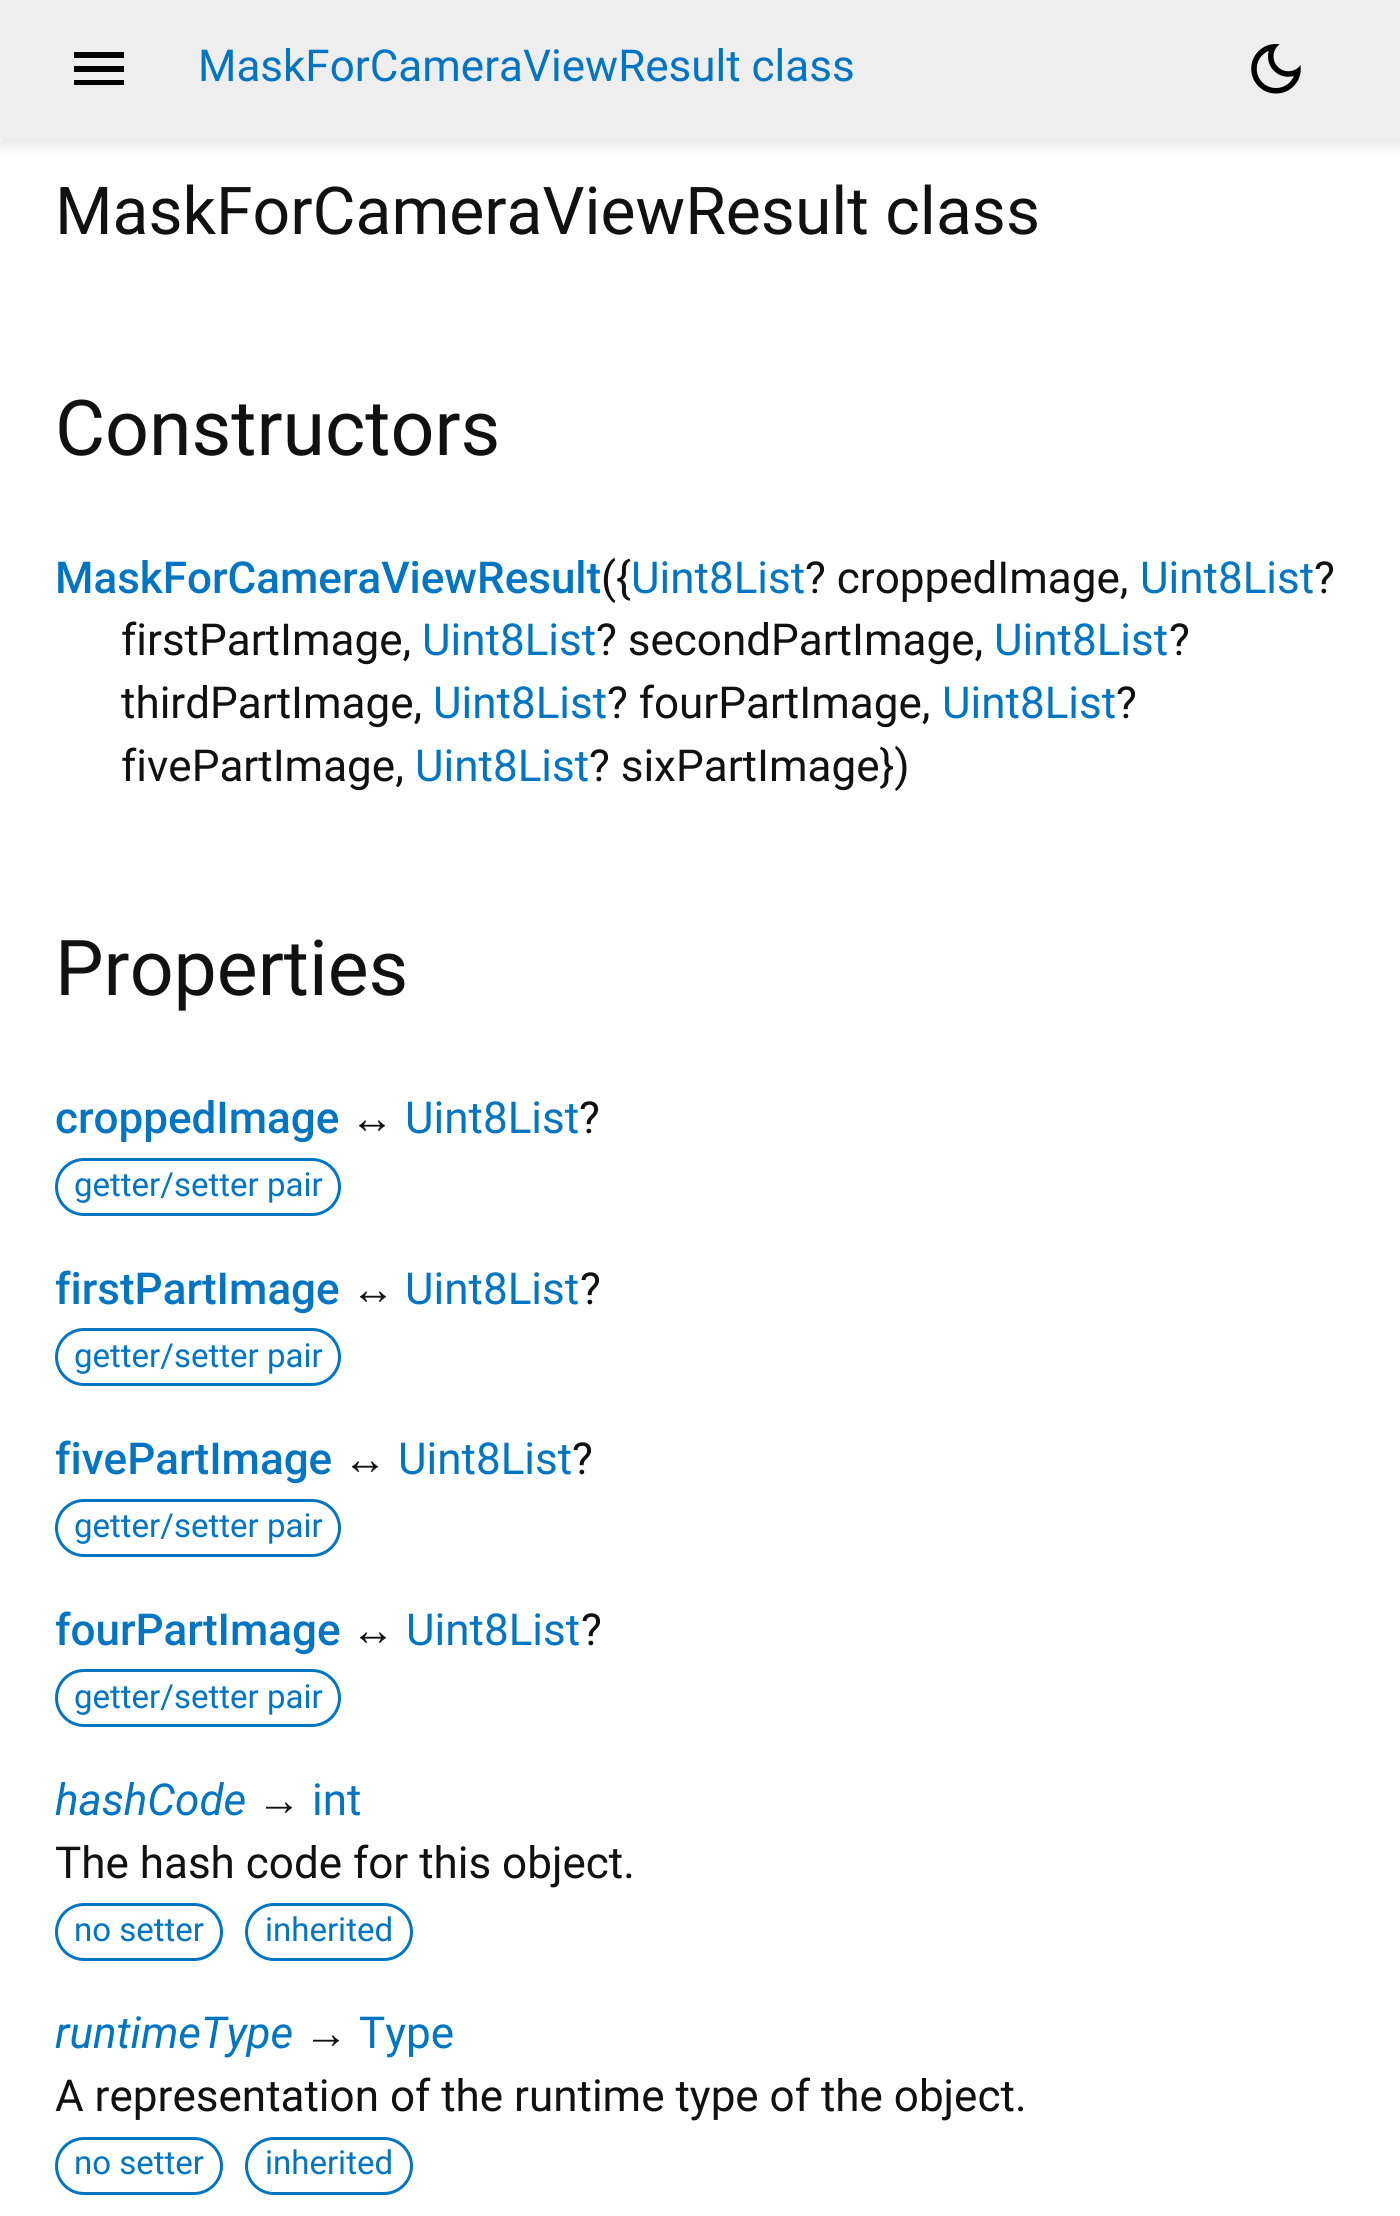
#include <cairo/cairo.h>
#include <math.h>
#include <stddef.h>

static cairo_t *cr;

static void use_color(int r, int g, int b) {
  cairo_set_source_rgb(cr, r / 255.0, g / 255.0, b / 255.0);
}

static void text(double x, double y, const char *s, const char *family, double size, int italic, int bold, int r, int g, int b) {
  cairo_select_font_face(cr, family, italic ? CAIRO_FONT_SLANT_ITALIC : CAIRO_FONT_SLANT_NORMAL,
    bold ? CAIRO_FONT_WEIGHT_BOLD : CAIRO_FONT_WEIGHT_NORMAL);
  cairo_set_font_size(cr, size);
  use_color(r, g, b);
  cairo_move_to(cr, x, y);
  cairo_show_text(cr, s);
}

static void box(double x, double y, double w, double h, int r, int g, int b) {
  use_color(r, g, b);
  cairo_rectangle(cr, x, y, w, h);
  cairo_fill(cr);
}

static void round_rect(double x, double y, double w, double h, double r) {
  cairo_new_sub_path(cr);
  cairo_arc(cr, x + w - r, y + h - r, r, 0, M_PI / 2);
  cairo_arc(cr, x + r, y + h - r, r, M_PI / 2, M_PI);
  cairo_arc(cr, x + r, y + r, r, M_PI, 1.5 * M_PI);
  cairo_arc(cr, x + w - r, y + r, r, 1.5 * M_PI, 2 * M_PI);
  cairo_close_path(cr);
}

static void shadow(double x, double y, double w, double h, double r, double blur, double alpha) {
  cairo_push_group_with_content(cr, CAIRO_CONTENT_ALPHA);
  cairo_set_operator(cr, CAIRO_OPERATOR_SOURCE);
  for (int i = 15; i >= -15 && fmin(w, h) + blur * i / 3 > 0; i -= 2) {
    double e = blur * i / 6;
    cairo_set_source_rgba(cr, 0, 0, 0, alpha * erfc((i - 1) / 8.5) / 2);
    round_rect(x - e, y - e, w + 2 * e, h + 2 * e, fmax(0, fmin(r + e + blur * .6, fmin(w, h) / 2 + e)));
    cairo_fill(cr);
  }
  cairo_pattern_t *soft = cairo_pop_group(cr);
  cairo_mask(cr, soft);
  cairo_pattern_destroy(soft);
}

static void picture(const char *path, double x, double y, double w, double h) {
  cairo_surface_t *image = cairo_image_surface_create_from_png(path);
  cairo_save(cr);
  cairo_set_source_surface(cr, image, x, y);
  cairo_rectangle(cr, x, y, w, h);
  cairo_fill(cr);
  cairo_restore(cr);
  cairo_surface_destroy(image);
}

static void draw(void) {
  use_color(255, 255, 255);
  cairo_paint(cr);
  use_color(0, 0, 0);
  shadow(0, 8, 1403, 138, 0, 7, 0.1);
  box(0, 0, 1400, 138, 238, 238, 238);
  use_color(0, 0, 0);
  cairo_new_path(cr);
  cairo_move_to(cr, 74, 85);
  cairo_line_to(cr, 74, 80);
  cairo_line_to(cr, 124, 80);
  cairo_line_to(cr, 124, 85);
  cairo_close_path(cr);
  cairo_move_to(cr, 74, 72);
  cairo_line_to(cr, 74, 66);
  cairo_line_to(cr, 124, 66);
  cairo_line_to(cr, 124, 72);
  cairo_close_path(cr);
  cairo_move_to(cr, 74, 58);
  cairo_line_to(cr, 74, 52);
  cairo_line_to(cr, 124, 52);
  cairo_line_to(cr, 124, 58);
  cairo_close_path(cr);
  cairo_fill(cr);
  picture("img_01.png", 1251, 44, 50, 50);
  round_rect(56.5, 1159.5, 283, 55, 27.5);
  use_color(1, 117, 194);
  cairo_set_line_width(cr, 3);
  cairo_stroke(cr);
  round_rect(56.5, 1329.5, 283, 55, 27.5);
  cairo_stroke(cr);
  round_rect(56.5, 1500.5, 283, 55, 27.5);
  cairo_stroke(cr);
  round_rect(56.5, 1670.5, 283, 55, 27.5);
  cairo_stroke(cr);
  round_rect(56.5, 1904.5, 165, 55, 27.5);
  cairo_stroke(cr);
  round_rect(246.5, 1904.5, 165, 55, 27.5);
  cairo_stroke(cr);
  round_rect(56.5, 2138.5, 165, 55, 27.5);
  cairo_stroke(cr);
  round_rect(246.5, 2138.5, 165, 55, 27.5);
  cairo_stroke(cr);
  text(198, 81, "MaskForCameraViewResult class", "Roboto", 44, 0, 0, 1, 117, 194);
  text(55, 234, "MaskForCameraViewResult class", "Roboto", 66, 0, 0, 17, 17, 17);
  text(55, 455, "Constructors", "Roboto", 77, 0, 0, 17, 17, 17);
  text(55, 593, "MaskForCameraViewResult", "Roboto Medium", 44, 0, 0, 1, 117, 194);
  text(601, 593, "({", "Roboto", 44, 0, 0, 17, 17, 17);
  text(631, 593, "Uint8List", "Roboto", 44, 0, 0, 1, 117, 194);
  text(805, 593, "? croppedImage,", "Roboto", 44, 0, 0, 17, 17, 17);
  text(1140, 593, "Uint8List", "Roboto", 44, 0, 0, 1, 117, 194);
  text(1314, 593, "?", "Roboto", 44, 0, 0, 17, 17, 17);
  text(121, 655, "firstPartImage,", "Roboto", 44, 0, 0, 17, 17, 17);
  text(422, 655, "Uint8List", "Roboto", 44, 0, 0, 1, 117, 194);
  text(596, 655, "? secondPartImage,", "Roboto", 44, 0, 0, 17, 17, 17);
  text(994, 655, "Uint8List", "Roboto", 44, 0, 0, 1, 117, 194);
  text(1169, 655, "?", "Roboto", 44, 0, 0, 17, 17, 17);
  text(121, 718, "thirdPartImage,", "Roboto", 44, 0, 0, 17, 17, 17);
  text(433, 718, "Uint8List", "Roboto", 44, 0, 0, 1, 117, 194);
  text(607, 718, "? fourPartImage,", "Roboto", 44, 0, 0, 17, 17, 17);
  text(942, 718, "Uint8List", "Roboto", 44, 0, 0, 1, 117, 194);
  text(1116, 718, "?", "Roboto", 44, 0, 0, 17, 17, 17);
  text(121, 781, "fivePartImage,", "Roboto", 44, 0, 0, 17, 17, 17);
  text(415, 781, "Uint8List", "Roboto", 44, 0, 0, 1, 117, 194);
  text(589, 781, "? sixPartImage})", "Roboto", 44, 0, 0, 17, 17, 17);
  text(55, 995, "Properties", "Roboto", 77, 0, 0, 17, 17, 17);
  text(55, 1133, "croppedImage", "Roboto Medium", 44, 0, 0, 1, 117, 194);
  text(350, 1133, "↔", "Liberation Sans", 44, 0, 0, 17, 17, 17);
  text(405, 1133, "Uint8List", "Roboto", 44, 0, 0, 1, 117, 194);
  text(579, 1133, "?", "Roboto", 44, 0, 0, 17, 17, 17);
  text(74, 1196, "getter/setter pair", "Roboto", 33, 0, 0, 1, 117, 194);
  text(55, 1304, "firstPartImage", "Roboto Medium", 44, 0, 0, 1, 117, 194);
  text(351, 1304, "↔", "Liberation Sans", 44, 0, 0, 17, 17, 17);
  text(405, 1304, "Uint8List", "Roboto", 44, 0, 0, 1, 117, 194);
  text(580, 1304, "?", "Roboto", 44, 0, 0, 17, 17, 17);
  text(74, 1367, "getter/setter pair", "Roboto", 33, 0, 0, 1, 117, 194);
  text(55, 1474, "fivePartImage", "Roboto Medium", 44, 0, 0, 1, 117, 194);
  text(343, 1474, "↔", "Liberation Sans", 44, 0, 0, 17, 17, 17);
  text(398, 1474, "Uint8List", "Roboto", 44, 0, 0, 1, 117, 194);
  text(572, 1474, "?", "Roboto", 44, 0, 0, 17, 17, 17);
  text(74, 1537, "getter/setter pair", "Roboto", 33, 0, 0, 1, 117, 194);
  text(55, 1645, "fourPartImage", "Roboto Medium", 44, 0, 0, 1, 117, 194);
  text(351, 1645, "↔", "Liberation Sans", 44, 0, 0, 17, 17, 17);
  text(406, 1645, "Uint8List", "Roboto", 44, 0, 0, 1, 117, 194);
  text(581, 1645, "?", "Roboto", 44, 0, 0, 17, 17, 17);
  text(74, 1708, "getter/setter pair", "Roboto", 33, 0, 0, 1, 117, 194);
  text(55, 1815, "hashCode", "Roboto", 44, 1, 0, 1, 117, 194);
  text(257, 1815, "→", "Liberation Sans", 44, 0, 0, 17, 17, 17);
  text(312, 1815, "int", "Roboto", 44, 0, 0, 1, 117, 194);
  text(55, 1878, "The hash code for this object.", "Roboto", 44, 0, 0, 17, 17, 17);
  text(74, 1941, "no setter", "Roboto", 33, 0, 0, 1, 117, 194);
  text(265, 1941, "inherited", "Roboto", 33, 0, 0, 1, 117, 194);
  text(55, 2048, "runtimeType", "Roboto", 44, 1, 0, 1, 117, 194);
  text(304, 2048, "→", "Liberation Sans", 44, 0, 0, 17, 17, 17);
  text(359, 2048, "Type", "Roboto", 44, 0, 0, 1, 117, 194);
  text(55, 2111, "A representation of the runtime type of the object.", "Roboto", 44, 0, 0, 17, 17, 17);
  text(74, 2174, "no setter", "Roboto", 33, 0, 0, 1, 117, 194);
  text(265, 2174, "inherited", "Roboto", 33, 0, 0, 1, 117, 194);
}

int main(void) {
  cairo_surface_t *surface = cairo_image_surface_create(CAIRO_FORMAT_RGB24, 1400, 2216);
  cr = cairo_create(surface);
  cairo_font_options_t *options = cairo_font_options_create();
  cairo_font_options_set_hint_metrics(options, CAIRO_HINT_METRICS_OFF);
  cairo_font_options_set_hint_style(options, CAIRO_HINT_STYLE_NONE);
  cairo_set_font_options(cr, options);
  cairo_set_miter_limit(cr, 4);
  draw();
  cairo_surface_write_to_png(surface, "out.png");
  cairo_font_options_destroy(options);
  cairo_destroy(cr);
  cairo_surface_destroy(surface);
  return 0;
}
